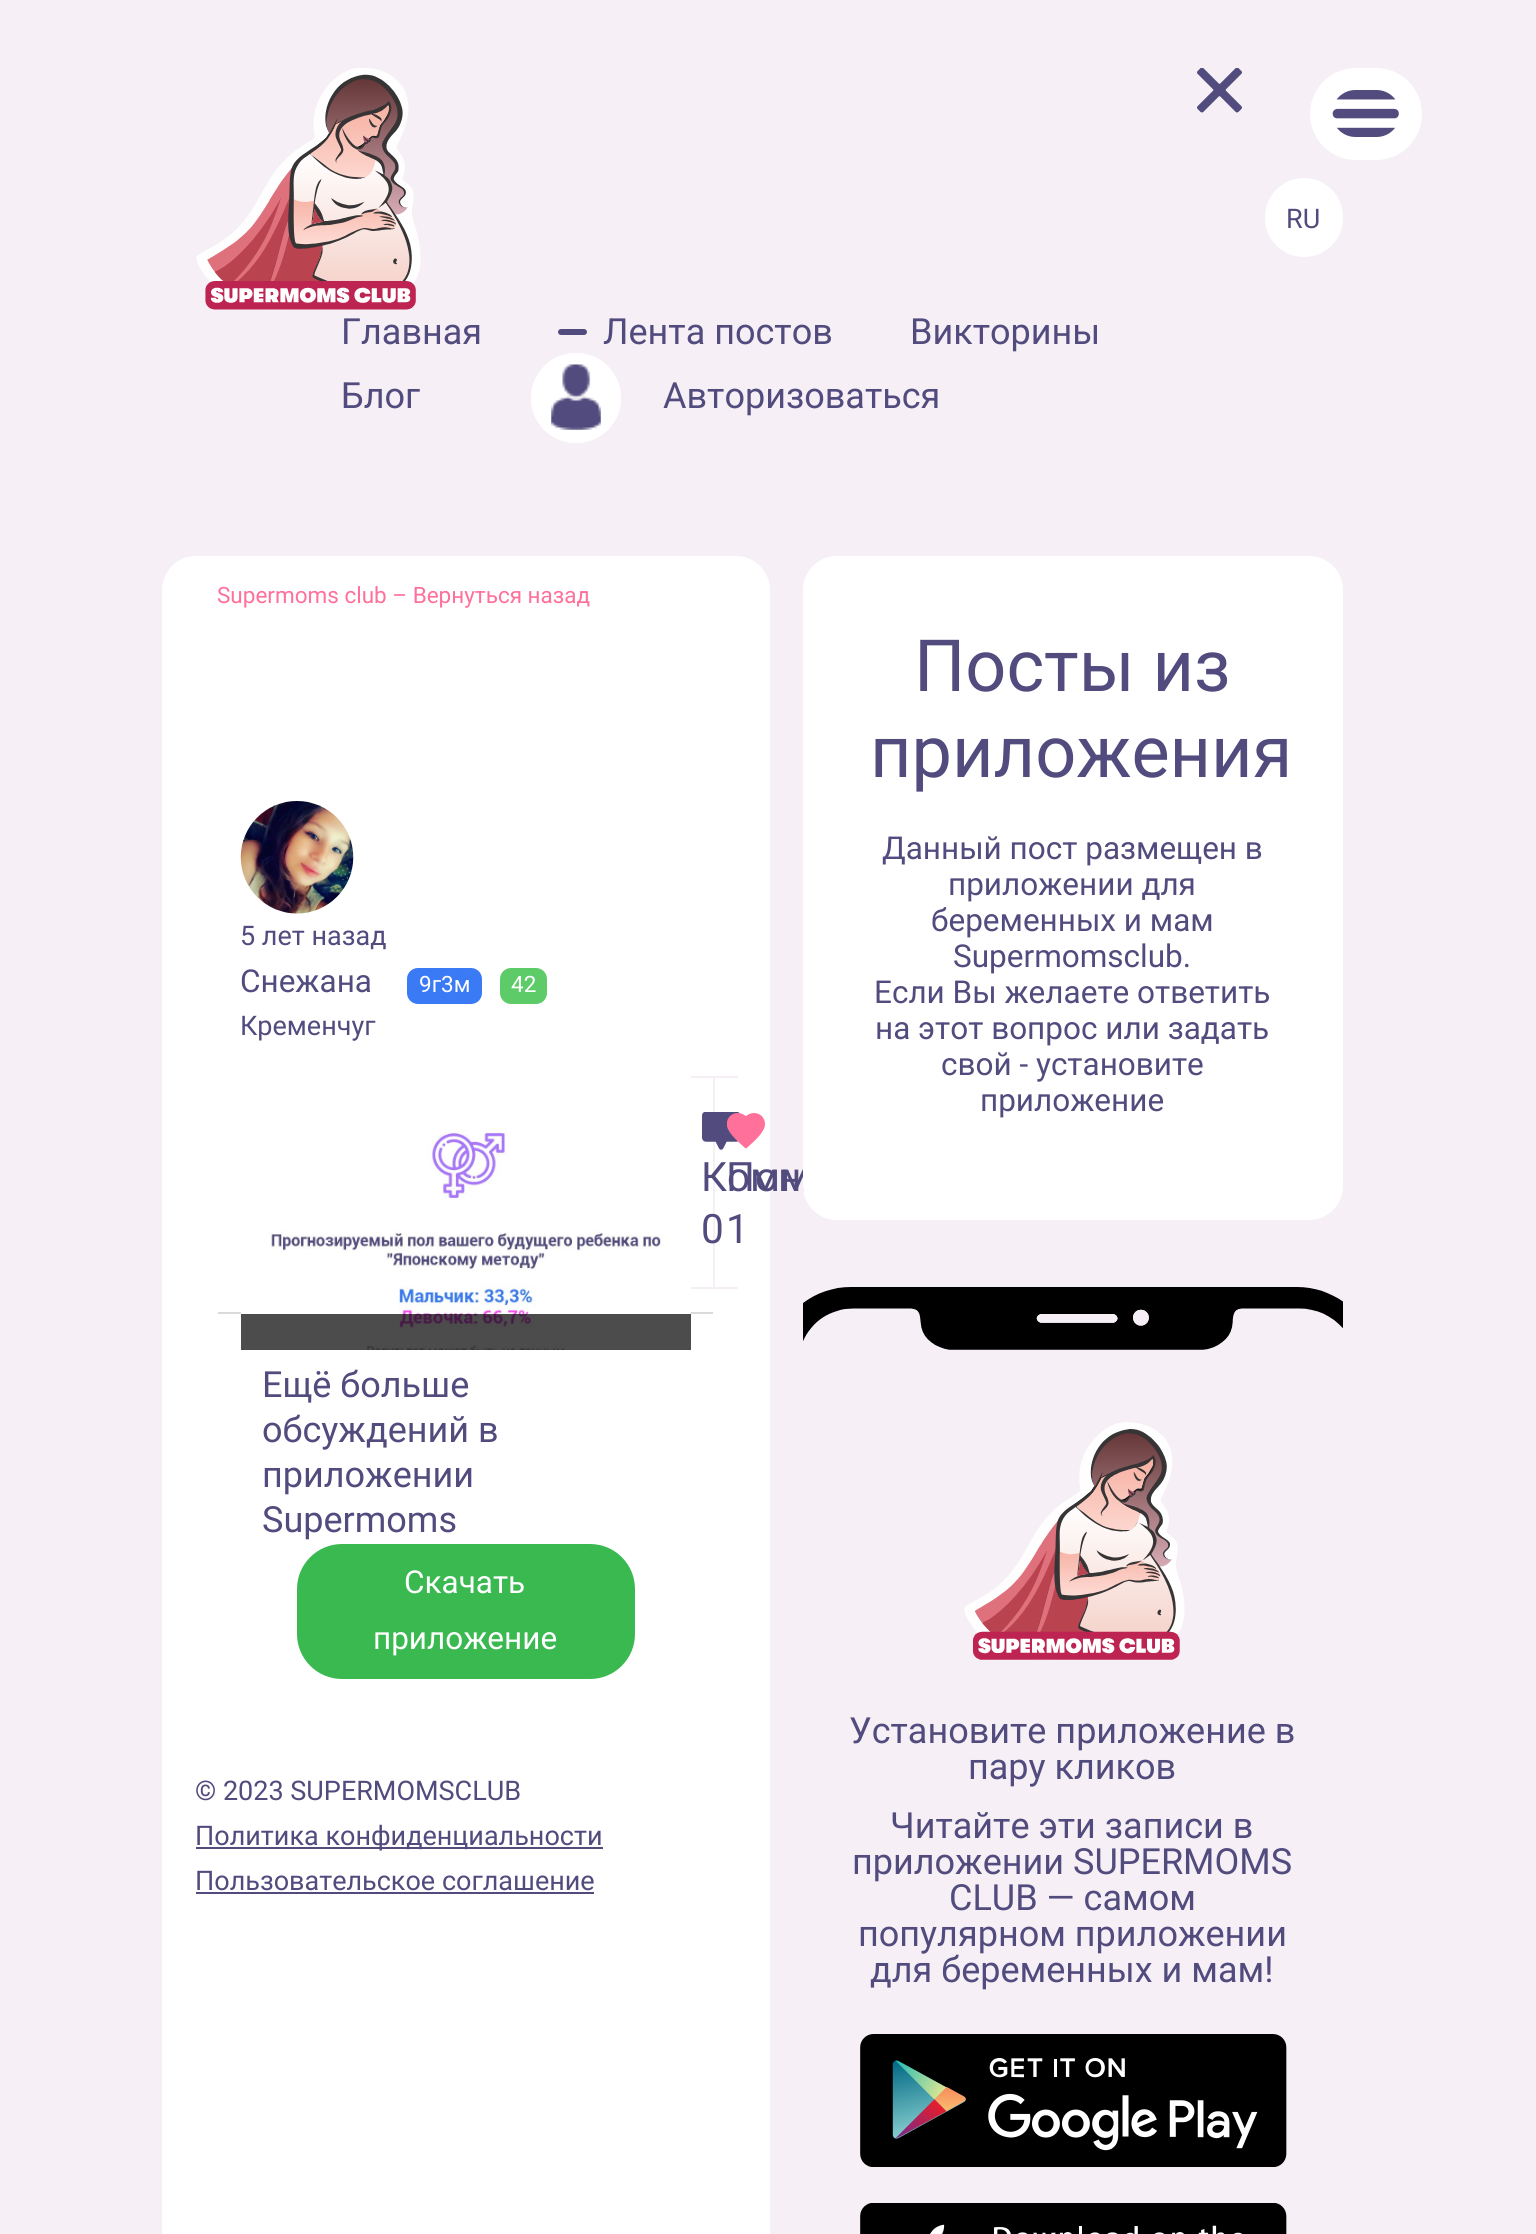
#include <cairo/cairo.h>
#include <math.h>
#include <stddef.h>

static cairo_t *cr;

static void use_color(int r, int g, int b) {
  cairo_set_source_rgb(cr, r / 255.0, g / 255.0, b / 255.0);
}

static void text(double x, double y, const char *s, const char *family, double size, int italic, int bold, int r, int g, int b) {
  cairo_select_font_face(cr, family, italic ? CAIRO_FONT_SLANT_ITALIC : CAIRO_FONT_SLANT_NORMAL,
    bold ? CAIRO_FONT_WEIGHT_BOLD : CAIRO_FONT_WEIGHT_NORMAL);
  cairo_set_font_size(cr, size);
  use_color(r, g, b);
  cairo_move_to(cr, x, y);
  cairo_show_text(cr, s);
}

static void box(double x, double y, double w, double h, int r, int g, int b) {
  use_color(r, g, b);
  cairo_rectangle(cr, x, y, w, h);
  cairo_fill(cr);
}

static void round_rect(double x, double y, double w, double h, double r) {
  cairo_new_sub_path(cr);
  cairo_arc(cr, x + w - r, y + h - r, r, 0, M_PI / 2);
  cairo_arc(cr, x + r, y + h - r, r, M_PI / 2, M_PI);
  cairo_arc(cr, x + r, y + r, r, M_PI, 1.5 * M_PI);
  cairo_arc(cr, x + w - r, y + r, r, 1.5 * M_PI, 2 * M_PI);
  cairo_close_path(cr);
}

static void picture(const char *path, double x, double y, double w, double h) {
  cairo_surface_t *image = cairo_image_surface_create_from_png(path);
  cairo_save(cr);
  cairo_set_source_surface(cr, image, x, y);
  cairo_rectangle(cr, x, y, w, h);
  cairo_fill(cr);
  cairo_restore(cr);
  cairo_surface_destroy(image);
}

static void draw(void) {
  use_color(246, 239, 246);
  cairo_paint(cr);
  use_color(255, 255, 255);
  round_rect(1310, 68, 112, 92, 46);
  cairo_fill(cr);
  picture("img_01.png", 1332, 90, 67, 47);
  round_rect(1265, 178, 78, 79, 39);
  cairo_fill(cr);
  picture("img_02.png", 196, 68, 225, 242);
  picture("img_03.png", 1197, 68, 45, 45);
  use_color(81, 75, 126);
  round_rect(558, 329, 29, 6, 3);
  cairo_fill(cr);
  use_color(255, 255, 255);
  cairo_arc(cr, 576, 398, 45, 0, 2 * M_PI);
  cairo_fill(cr);
  picture("img_04.png", 551, 364, 50, 66);
  cairo_arc(cr, 576, 398, 42.5, 0, 2 * M_PI);
  cairo_set_line_width(cr, 5);
  cairo_stroke(cr);
  round_rect(162, 556, 608, 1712, 34);
  cairo_fill(cr);
  picture("img_05.png", 240, 801, 114, 113);
  use_color(58, 122, 245);
  round_rect(407, 968, 75, 36, 11);
  cairo_fill(cr);
  use_color(93, 203, 104);
  round_rect(500, 968, 47, 36, 11);
  cairo_fill(cr);
  box(218, 1312, 495, 2, 218, 218, 218);
  picture("img_06.png", 241, 1128, 450, 222);
  cairo_set_source_rgba(cr, 0, 0, 0, 0.7);
  cairo_rectangle(cr, 241, 1314, 450, 36);
  cairo_fill(cr);
  box(691, 1076, 47, 2, 246, 239, 246);
  box(713, 1076, 2, 213, 246, 239, 246);
  box(691, 1287, 47, 2, 246, 239, 246);
  picture("img_07.png", 702, 1112, 38, 38);
  picture("img_08.png", 727, 1113, 38, 36);
  use_color(58, 185, 81);
  round_rect(297, 1544, 338, 135, 45);
  cairo_fill(cr);
  box(196, 1847, 407, 2, 81, 75, 126);
  box(196, 1892, 398, 2, 81, 75, 126);
  picture("img_09.png", 803, 1287, 540, 373);
  picture("img_10.png", 860, 2034, 427, 133);
  picture("img_11.png", 860, 2203, 427, 31);
  text(1286, 228, "RU", "Roboto", 27, 0, 0, 81, 75, 126);
  text(341, 344, "Главная", "Roboto", 36, 0, 0, 81, 75, 126);
  text(603, 344, "Лента постов", "Roboto", 36, 0, 0, 81, 75, 126);
  text(910, 344, "Викторины", "Roboto", 36, 0, 0, 81, 75, 126);
  text(341, 408, "Блог", "Roboto", 36, 0, 0, 81, 75, 126);
  text(663, 408, "Авторизоваться", "Roboto", 36, 0, 0, 81, 75, 126);
  text(217, 603, "Supermoms club – Вернуться назад", "Roboto", 22.5, 0, 0, 255, 112, 155);
  text(240, 945, "5 лет назад", "Roboto", 27, 0, 0, 81, 75, 126);
  text(240, 992, "Снежана", "Roboto", 31.5, 0, 0, 81, 75, 126);
  text(419, 992, "9г3м", "Roboto", 22.5, 0, 0, 255, 255, 255);
  text(511, 992, "42", "Roboto", 22.5, 0, 0, 255, 255, 255);
  text(240, 1035, "Кременчуг", "Roboto", 27, 0, 0, 81, 75, 126);
  text(701, 1191, "Комм", "Roboto", 40.5, 0, 0, 81, 75, 126);
  text(701, 1243, "0", "Roboto", 40.5, 0, 0, 81, 75, 126);
  text(726, 1191, "Пон", "Roboto", 40.5, 0, 0, 81, 75, 126);
  text(726, 1243, "1", "Roboto", 40.5, 0, 0, 81, 75, 126);
  text(262, 1397, "Ещё больше", "Roboto", 36, 0, 0, 81, 75, 126);
  text(262, 1442, "обсуждений в", "Roboto", 36, 0, 0, 81, 75, 126);
  text(262, 1487, "приложении", "Roboto", 36, 0, 0, 81, 75, 126);
  text(262, 1532, "Supermoms", "Roboto", 36, 0, 0, 81, 75, 126);
  text(404, 1593, "Скачать", "Roboto", 31.5, 0, 0, 255, 255, 255);
  text(373, 1649, "приложение", "Roboto", 31.5, 0, 0, 255, 255, 255);
  text(195, 1800, "© 2023 SUPERMOMSCLUB", "Roboto", 27, 0, 0, 81, 75, 126);
  text(195, 1845, "Политика конфиденциальности", "Roboto", 27, 0, 0, 81, 75, 126);
  text(195, 1890, "Пользовательское соглашение", "Roboto", 27, 0, 0, 81, 75, 126);
  use_color(255, 255, 255);
  round_rect(803, 556, 540, 664, 34);
  cairo_fill(cr);
  text(914, 691, "Посты из", "Roboto", 72, 0, 0, 81, 75, 126);
  text(870, 777, "приложения", "Roboto", 72, 0, 0, 81, 75, 126);
  text(882, 859, "Данный пост размещен в", "Roboto", 31.5, 0, 0, 81, 75, 126);
  text(948, 895, "приложении для", "Roboto", 31.5, 0, 0, 81, 75, 126);
  text(931, 931, "беременных и мам", "Roboto", 31.5, 0, 0, 81, 75, 126);
  text(953, 967, "Supermomsclub.", "Roboto", 31.5, 0, 0, 81, 75, 126);
  text(874, 1003, "Если Вы желаете ответить", "Roboto", 31.5, 0, 0, 81, 75, 126);
  text(875, 1039, "на этот вопрос или задать", "Roboto", 31.5, 0, 0, 81, 75, 126);
  text(941, 1075, "свой - установите", "Roboto", 31.5, 0, 0, 81, 75, 126);
  text(980, 1111, "приложение", "Roboto", 31.5, 0, 0, 81, 75, 126);
  text(849, 1743, "Установите приложение в", "Roboto", 36, 0, 0, 81, 75, 126);
  text(968, 1779, "пару кликов", "Roboto", 36, 0, 0, 81, 75, 126);
  text(890, 1838, "Читайте эти записи в", "Roboto", 36, 0, 0, 81, 75, 126);
  text(852, 1874, "приложении SUPERMOMS", "Roboto", 36, 0, 0, 81, 75, 126);
  text(949, 1910, "CLUB — самом", "Roboto", 36, 0, 0, 81, 75, 126);
  text(858, 1946, "популярном приложении", "Roboto", 36, 0, 0, 81, 75, 126);
  text(870, 1982, "для беременных и мам!", "Roboto", 36, 0, 0, 81, 75, 126);
}

int main(void) {
  cairo_surface_t *surface = cairo_image_surface_create(CAIRO_FORMAT_RGB24, 1536, 2234);
  cr = cairo_create(surface);
  cairo_font_options_t *options = cairo_font_options_create();
  cairo_font_options_set_hint_metrics(options, CAIRO_HINT_METRICS_OFF);
  cairo_font_options_set_hint_style(options, CAIRO_HINT_STYLE_NONE);
  cairo_set_font_options(cr, options);
  cairo_set_miter_limit(cr, 4);
  draw();
  cairo_surface_write_to_png(surface, "out.png");
  cairo_font_options_destroy(options);
  cairo_destroy(cr);
  cairo_surface_destroy(surface);
  return 0;
}
